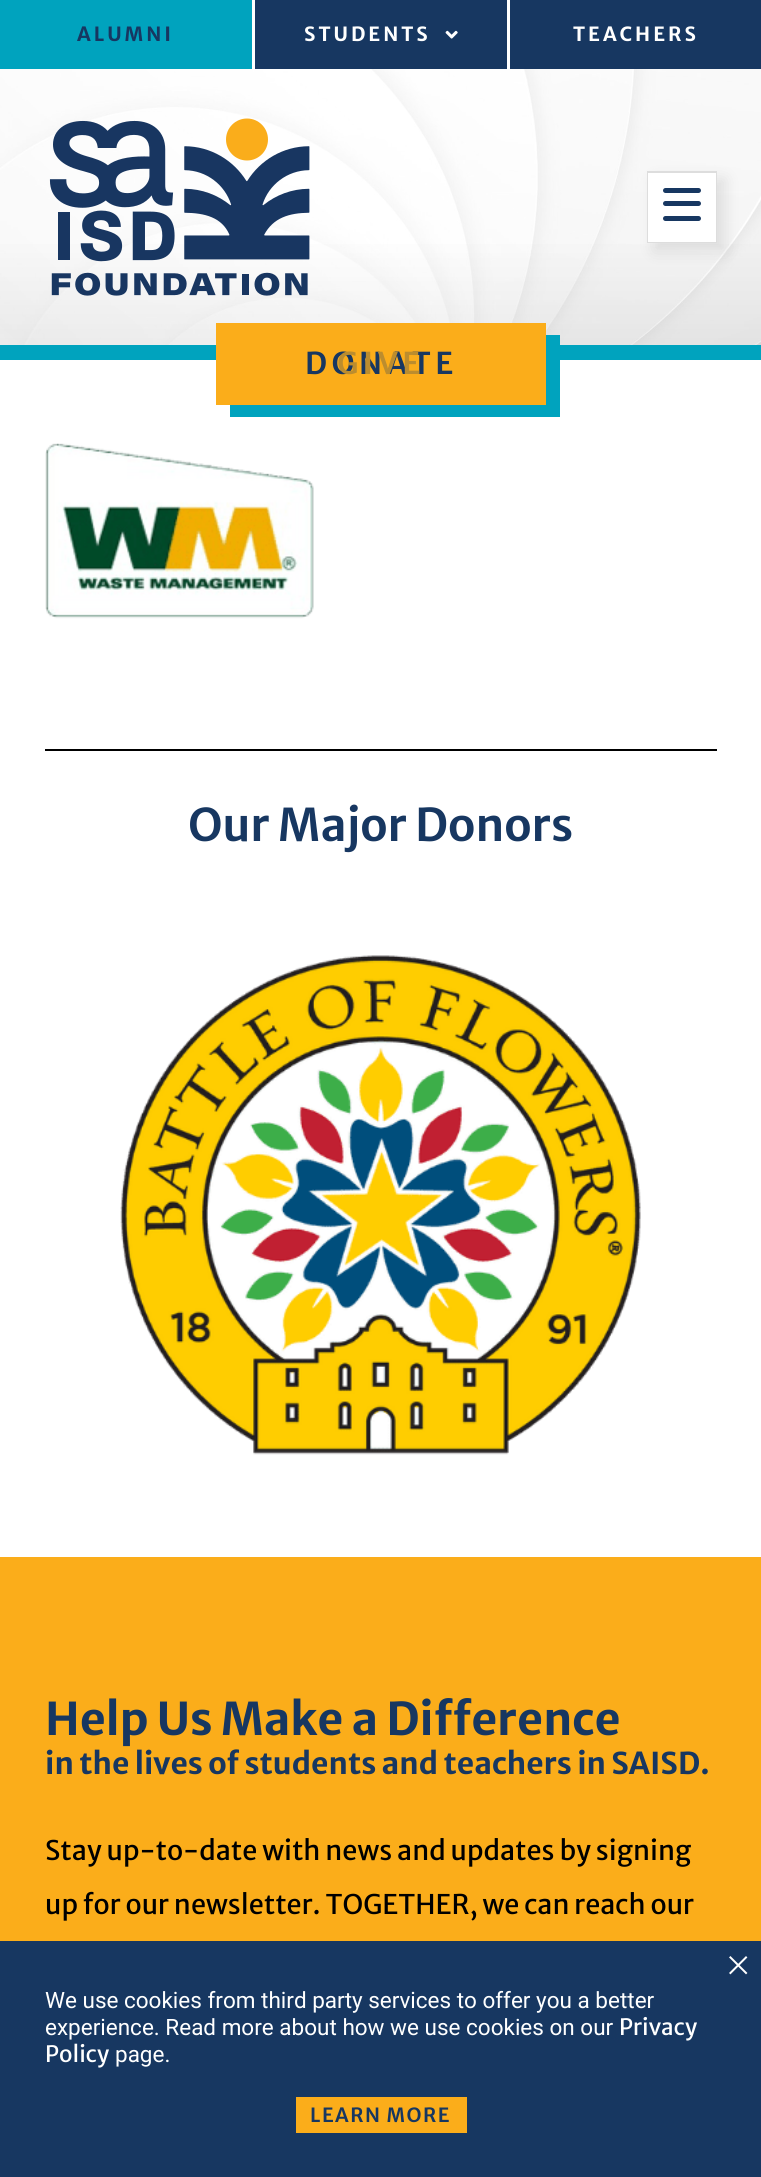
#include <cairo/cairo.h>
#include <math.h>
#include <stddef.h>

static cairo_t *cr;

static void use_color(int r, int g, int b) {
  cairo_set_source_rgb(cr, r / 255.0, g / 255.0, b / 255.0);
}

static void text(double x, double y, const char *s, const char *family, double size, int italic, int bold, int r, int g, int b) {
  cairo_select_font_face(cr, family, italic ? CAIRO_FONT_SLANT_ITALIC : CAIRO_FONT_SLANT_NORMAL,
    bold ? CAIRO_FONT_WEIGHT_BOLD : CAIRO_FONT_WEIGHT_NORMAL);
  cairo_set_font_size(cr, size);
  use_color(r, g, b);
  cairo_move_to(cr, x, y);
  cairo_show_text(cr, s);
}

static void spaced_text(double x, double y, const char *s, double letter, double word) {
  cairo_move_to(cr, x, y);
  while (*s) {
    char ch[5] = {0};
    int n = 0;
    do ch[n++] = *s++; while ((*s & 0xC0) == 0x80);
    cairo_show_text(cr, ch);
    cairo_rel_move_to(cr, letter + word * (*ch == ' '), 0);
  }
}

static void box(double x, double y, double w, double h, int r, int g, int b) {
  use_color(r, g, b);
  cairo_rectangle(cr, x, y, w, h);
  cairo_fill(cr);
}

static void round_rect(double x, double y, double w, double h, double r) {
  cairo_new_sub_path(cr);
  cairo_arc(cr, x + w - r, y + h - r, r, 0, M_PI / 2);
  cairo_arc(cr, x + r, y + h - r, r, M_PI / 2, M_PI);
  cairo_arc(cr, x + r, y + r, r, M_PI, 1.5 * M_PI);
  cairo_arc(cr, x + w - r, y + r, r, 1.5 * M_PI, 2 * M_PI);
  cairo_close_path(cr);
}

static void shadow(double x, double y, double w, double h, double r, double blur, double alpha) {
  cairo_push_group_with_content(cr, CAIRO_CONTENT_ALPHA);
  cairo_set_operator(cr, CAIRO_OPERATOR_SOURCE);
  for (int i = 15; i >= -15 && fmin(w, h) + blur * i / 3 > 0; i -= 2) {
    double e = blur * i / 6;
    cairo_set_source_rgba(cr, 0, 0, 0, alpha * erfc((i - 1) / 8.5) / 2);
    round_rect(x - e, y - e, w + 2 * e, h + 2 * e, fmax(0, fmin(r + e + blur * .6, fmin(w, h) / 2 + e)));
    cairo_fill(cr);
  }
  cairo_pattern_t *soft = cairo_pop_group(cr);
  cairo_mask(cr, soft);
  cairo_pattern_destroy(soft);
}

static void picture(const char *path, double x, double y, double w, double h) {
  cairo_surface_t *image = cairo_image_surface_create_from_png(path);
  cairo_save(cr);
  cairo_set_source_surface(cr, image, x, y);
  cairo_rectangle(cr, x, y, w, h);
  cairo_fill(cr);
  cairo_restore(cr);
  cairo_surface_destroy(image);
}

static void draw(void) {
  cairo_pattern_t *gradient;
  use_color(255, 255, 255);
  cairo_paint(cr);
  box(0, 0, 252, 69, 0, 163, 190);
  box(255, 0, 252, 69, 23, 55, 97);
  picture("img_01.png", 445, 30, 13, 9);
  box(510, 0, 251, 69, 23, 55, 97);
  gradient = cairo_pattern_create_linear(381, 345, 381, 69);
  cairo_pattern_add_color_stop_rgba(gradient, 0, 0.906, 0.906, 0.906, 1);
  cairo_pattern_add_color_stop_rgba(gradient, 0.41, 1, 1, 1, 1);
  cairo_set_source(cr, gradient);
  cairo_pattern_destroy(gradient);
  cairo_rectangle(cr, 0, 244, 761, 101);
  cairo_fill(cr);
  box(0, 345, 761, 15, 0, 163, 190);
  picture("img_02.png", 0, 69, 761, 276);
  picture("img_03.png", 49, 118, 261, 178);
  use_color(0, 0, 0);
  shadow(654, 179, 71, 72, 0, 7.5, 0.1);
  cairo_rectangle(cr, 648, 172, 68, 70);
  use_color(221, 221, 221);
  cairo_stroke(cr);
  box(648, 173, 68, 69, 255, 255, 255);
  use_color(23, 55, 97);
  round_rect(663, 201, 38, 5, 2.5);
  cairo_fill(cr);
  round_rect(663, 188, 38, 5, 2.5);
  cairo_fill(cr);
  round_rect(663, 216, 38, 5, 2.5);
  cairo_fill(cr);
  use_color(0, 163, 190);
  cairo_new_path(cr);
  cairo_move_to(cr, 230, 405);
  cairo_line_to(cr, 230, 417);
  cairo_line_to(cr, 560, 417);
  cairo_line_to(cr, 560, 335);
  cairo_line_to(cr, 546, 335);
  cairo_line_to(cr, 546, 405);
  cairo_close_path(cr);
  cairo_fill(cr);
  box(216, 323, 330, 82, 251, 173, 26);
  picture("img_04.png", 45, 443, 269, 176);
  box(45, 749, 672, 2, 0, 0, 0);
  picture("img_05.png", 120, 955, 521, 500);
  box(0, 1557, 761, 384, 251, 173, 26);
  box(0, 1941, 761, 236, 23, 55, 97);
  picture("img_06.png", 729, 1956, 19, 19);
  box(296, 2097, 171, 36, 251, 173, 26);
  cairo_select_font_face(cr, "Merriweather Sans", CAIRO_FONT_SLANT_NORMAL, CAIRO_FONT_WEIGHT_BOLD);
  cairo_set_font_size(cr, 19.5);
  use_color(23, 55, 97);
  spaced_text(77, 41, "ALUMNI", 3, 0);
  use_color(255, 255, 255);
  spaced_text(304, 41, "STUDENTS", 3, 0);
  spaced_text(573, 41, "TEACHERS", 3, 0);
  cairo_select_font_face(cr, "Merriweather Sans SemiBold", CAIRO_FONT_SLANT_NORMAL, CAIRO_FONT_WEIGHT_NORMAL);
  cairo_set_font_size(cr, 30);
  use_color(23, 55, 97);
  spaced_text(305, 374, "DONATE", 4.5, 0);
  use_color(188, 141, 46);
  spaced_text(337, 374, "GIVE", 4.5, 0);
  text(188, 841, "Our Major Donors", "Merriweather Sans SemiBold", 45, 0, 0, 23, 55, 97);
  text(45, 1735, "Help Us Make a Difference", "Merriweather Sans", 45, 0, 1, 23, 55, 97);
  text(45, 1774, "in the lives of students and teachers in SAISD.", "Merriweather Sans", 30, 0, 1, 23, 55, 97);
  text(45, 1860, "Stay up-to-date with news and updates by signing", "Merriweather Sans", 27, 0, 0, 0, 0, 0);
  text(45, 1914, "up for our newsletter. TOGETHER, we can reach our", "Merriweather Sans", 27, 0, 0, 0, 0, 0);
  text(45, 2008, "We use cookies from third party services to offer you a better", "Roboto", 22.5, 0, 0, 255, 255, 255);
  text(45, 2035, "experience. Read more about how we use cookies on our", "Roboto", 22.5, 0, 0, 255, 255, 255);
  text(619, 2035, "Privacy", "Merriweather Sans", 22.5, 0, 0, 255, 255, 255);
  text(45, 2062, "Policy", "Merriweather Sans", 22.5, 0, 0, 255, 255, 255);
  text(115, 2062, "page.", "Roboto", 22.5, 0, 0, 255, 255, 255);
  cairo_select_font_face(cr, "Merriweather Sans SemiBold", CAIRO_FONT_SLANT_NORMAL, CAIRO_FONT_WEIGHT_NORMAL);
  cairo_set_font_size(cr, 19.5);
  use_color(23, 55, 97);
  spaced_text(310, 2122, "LEARN MORE", 1.5, 0);
}

int main(void) {
  cairo_surface_t *surface = cairo_image_surface_create(CAIRO_FORMAT_RGB24, 761, 2177);
  cr = cairo_create(surface);
  cairo_font_options_t *options = cairo_font_options_create();
  cairo_font_options_set_hint_metrics(options, CAIRO_HINT_METRICS_OFF);
  cairo_font_options_set_hint_style(options, CAIRO_HINT_STYLE_NONE);
  cairo_set_font_options(cr, options);
  cairo_set_miter_limit(cr, 4);
  draw();
  cairo_surface_write_to_png(surface, "out.png");
  cairo_font_options_destroy(options);
  cairo_destroy(cr);
  cairo_surface_destroy(surface);
  return 0;
}
